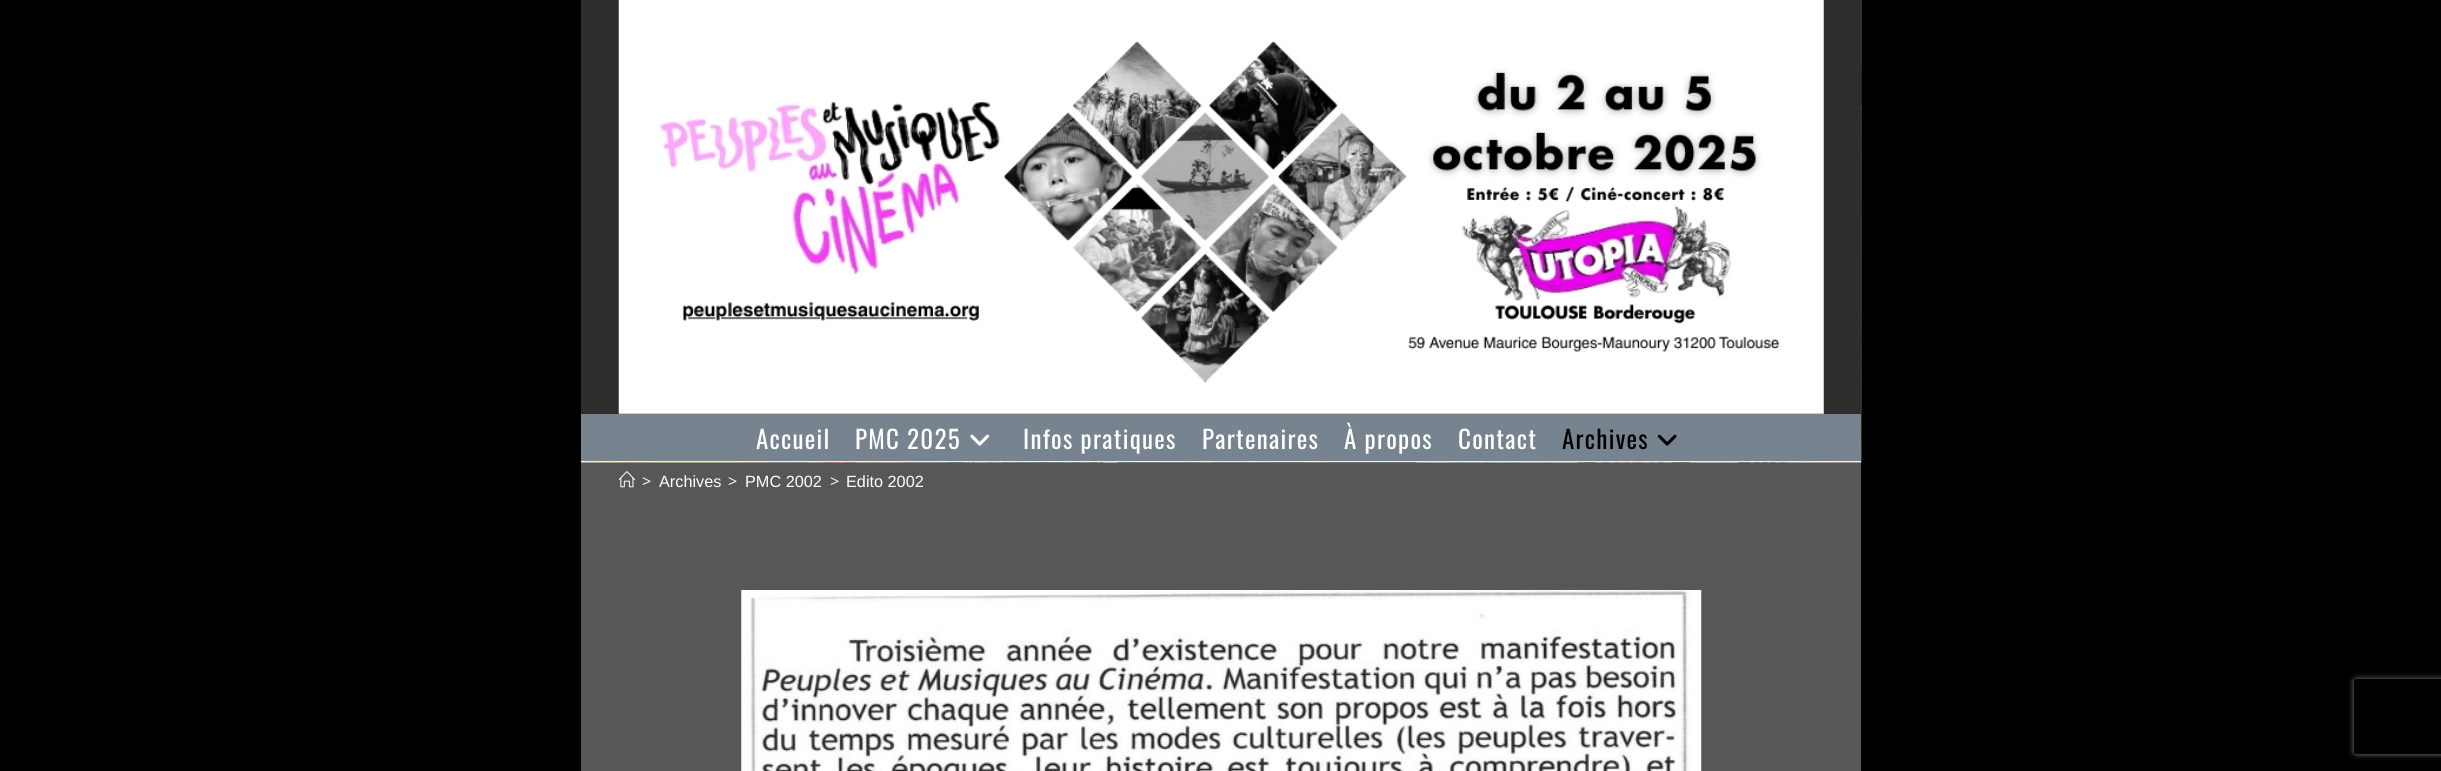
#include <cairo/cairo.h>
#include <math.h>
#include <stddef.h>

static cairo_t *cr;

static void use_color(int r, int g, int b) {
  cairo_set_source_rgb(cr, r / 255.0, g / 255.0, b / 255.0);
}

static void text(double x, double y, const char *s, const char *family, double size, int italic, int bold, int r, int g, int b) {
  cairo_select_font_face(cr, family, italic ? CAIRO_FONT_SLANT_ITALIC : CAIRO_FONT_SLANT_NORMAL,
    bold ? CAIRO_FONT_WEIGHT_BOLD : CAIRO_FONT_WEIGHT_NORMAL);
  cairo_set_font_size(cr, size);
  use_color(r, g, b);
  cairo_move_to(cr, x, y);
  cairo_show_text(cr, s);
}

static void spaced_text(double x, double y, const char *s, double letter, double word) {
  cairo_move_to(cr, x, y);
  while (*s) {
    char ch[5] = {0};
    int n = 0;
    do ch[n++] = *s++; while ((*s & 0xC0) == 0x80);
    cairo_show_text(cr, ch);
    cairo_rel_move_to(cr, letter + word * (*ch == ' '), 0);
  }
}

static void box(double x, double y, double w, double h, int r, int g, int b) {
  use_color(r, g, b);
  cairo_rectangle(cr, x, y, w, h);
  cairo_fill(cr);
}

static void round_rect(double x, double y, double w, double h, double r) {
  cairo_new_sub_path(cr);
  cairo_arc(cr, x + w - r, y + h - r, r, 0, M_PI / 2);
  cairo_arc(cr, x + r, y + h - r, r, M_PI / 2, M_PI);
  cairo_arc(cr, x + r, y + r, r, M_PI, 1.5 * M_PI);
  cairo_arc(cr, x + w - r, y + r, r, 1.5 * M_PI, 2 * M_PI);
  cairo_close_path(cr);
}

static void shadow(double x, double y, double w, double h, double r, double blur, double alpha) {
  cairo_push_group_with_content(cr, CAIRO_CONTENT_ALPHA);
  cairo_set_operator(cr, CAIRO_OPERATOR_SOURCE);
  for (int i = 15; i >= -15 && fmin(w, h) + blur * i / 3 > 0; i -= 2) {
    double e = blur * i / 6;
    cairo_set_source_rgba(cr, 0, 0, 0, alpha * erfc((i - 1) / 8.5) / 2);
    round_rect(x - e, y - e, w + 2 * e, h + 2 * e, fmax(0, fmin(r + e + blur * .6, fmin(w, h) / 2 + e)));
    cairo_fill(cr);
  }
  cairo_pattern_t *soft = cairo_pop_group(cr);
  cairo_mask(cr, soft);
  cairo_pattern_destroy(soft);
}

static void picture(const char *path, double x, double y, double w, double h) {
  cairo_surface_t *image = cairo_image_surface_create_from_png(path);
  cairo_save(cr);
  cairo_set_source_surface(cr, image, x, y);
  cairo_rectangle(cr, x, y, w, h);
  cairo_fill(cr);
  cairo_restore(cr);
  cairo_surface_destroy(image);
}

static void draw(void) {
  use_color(0, 0, 0);
  cairo_paint(cr);
  box(581, 462, 1280, 309, 87, 87, 87);
  picture("img_01.png", 581, 0, 1281, 463);
  box(581, 461, 1280, 1, 241, 241, 241);
  box(581, 0, 1280, 414, 45, 45, 45);
  picture("img_02.png", 618, 0, 1206, 414);
  box(581, 414, 1280, 47, 119, 132, 143);
  picture("img_03.png", 970, 434, 19, 12);
  picture("img_04.png", 1657, 434, 20, 12);
  picture("img_05.png", 619, 471, 16, 17);
  picture("img_06.png", 741, 590, 961, 181);
  cairo_save(cr);
  cairo_set_fill_rule(cr, CAIRO_FILL_RULE_EVEN_ODD);
  cairo_new_path(cr);
  cairo_move_to(cr, 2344, 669);
  cairo_line_to(cr, 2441, 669);
  cairo_line_to(cr, 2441, 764);
  cairo_line_to(cr, 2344, 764);
  cairo_close_path(cr);
  cairo_move_to(cr, 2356.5, 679);
  cairo_line_to(cr, 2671.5, 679);
  cairo_curve_to(cr, 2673, 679, 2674, 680, 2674, 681.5);
  cairo_line_to(cr, 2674, 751.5);
  cairo_curve_to(cr, 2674, 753, 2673, 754, 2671.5, 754);
  cairo_line_to(cr, 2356.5, 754);
  cairo_curve_to(cr, 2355, 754, 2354, 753, 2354, 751.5);
  cairo_line_to(cr, 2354, 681.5);
  cairo_curve_to(cr, 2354, 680, 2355, 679, 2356.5, 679);
  cairo_close_path(cr);
  cairo_clip(cr);
  use_color(128, 128, 128);
  shadow(2354, 679, 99, 75, 2.5, 3, 1);
  cairo_restore(cr);
  cairo_select_font_face(cr, "Oswald", CAIRO_FONT_SLANT_NORMAL, CAIRO_FONT_WEIGHT_NORMAL);
  cairo_set_font_size(cr, 25);
  use_color(255, 255, 255);
  spaced_text(756, 449, "Accueil", 1.25, 0);
  spaced_text(855, 449, "PMC 2025", 1.25, 0);
  spaced_text(1023, 449, "Infos pratiques", 1.25, 0);
  spaced_text(1202, 449, "Partenaires", 1.25, 0);
  spaced_text(1344, 449, "À propos", 1.25, 0);
  spaced_text(1458, 449, "Contact", 1.25, 0);
  use_color(0, 0, 0);
  spaced_text(1562, 449, "Archives", 1.25, 0);
  text(642, 487, ">", "Open Sans", 16.25, 0, 0, 255, 255, 255);
  text(659, 487, "Archives", "Liberation Sans", 16.25, 0, 0, 255, 255, 255);
  text(728, 487, ">", "Open Sans", 16.25, 0, 0, 255, 255, 255);
  text(745, 487, "PMC 2002", "Liberation Sans", 16.25, 0, 0, 255, 255, 255);
  text(830, 487, ">", "Open Sans", 16.25, 0, 0, 255, 255, 255);
  text(846, 487, "Edito 2002", "Liberation Sans", 16.25, 0, 0, 255, 255, 255);
}

int main(void) {
  cairo_surface_t *surface = cairo_image_surface_create(CAIRO_FORMAT_RGB24, 2441, 771);
  cr = cairo_create(surface);
  cairo_font_options_t *options = cairo_font_options_create();
  cairo_font_options_set_hint_metrics(options, CAIRO_HINT_METRICS_OFF);
  cairo_font_options_set_hint_style(options, CAIRO_HINT_STYLE_NONE);
  cairo_set_font_options(cr, options);
  cairo_set_miter_limit(cr, 4);
  draw();
  cairo_surface_write_to_png(surface, "out.png");
  cairo_font_options_destroy(options);
  cairo_destroy(cr);
  cairo_surface_destroy(surface);
  return 0;
}
